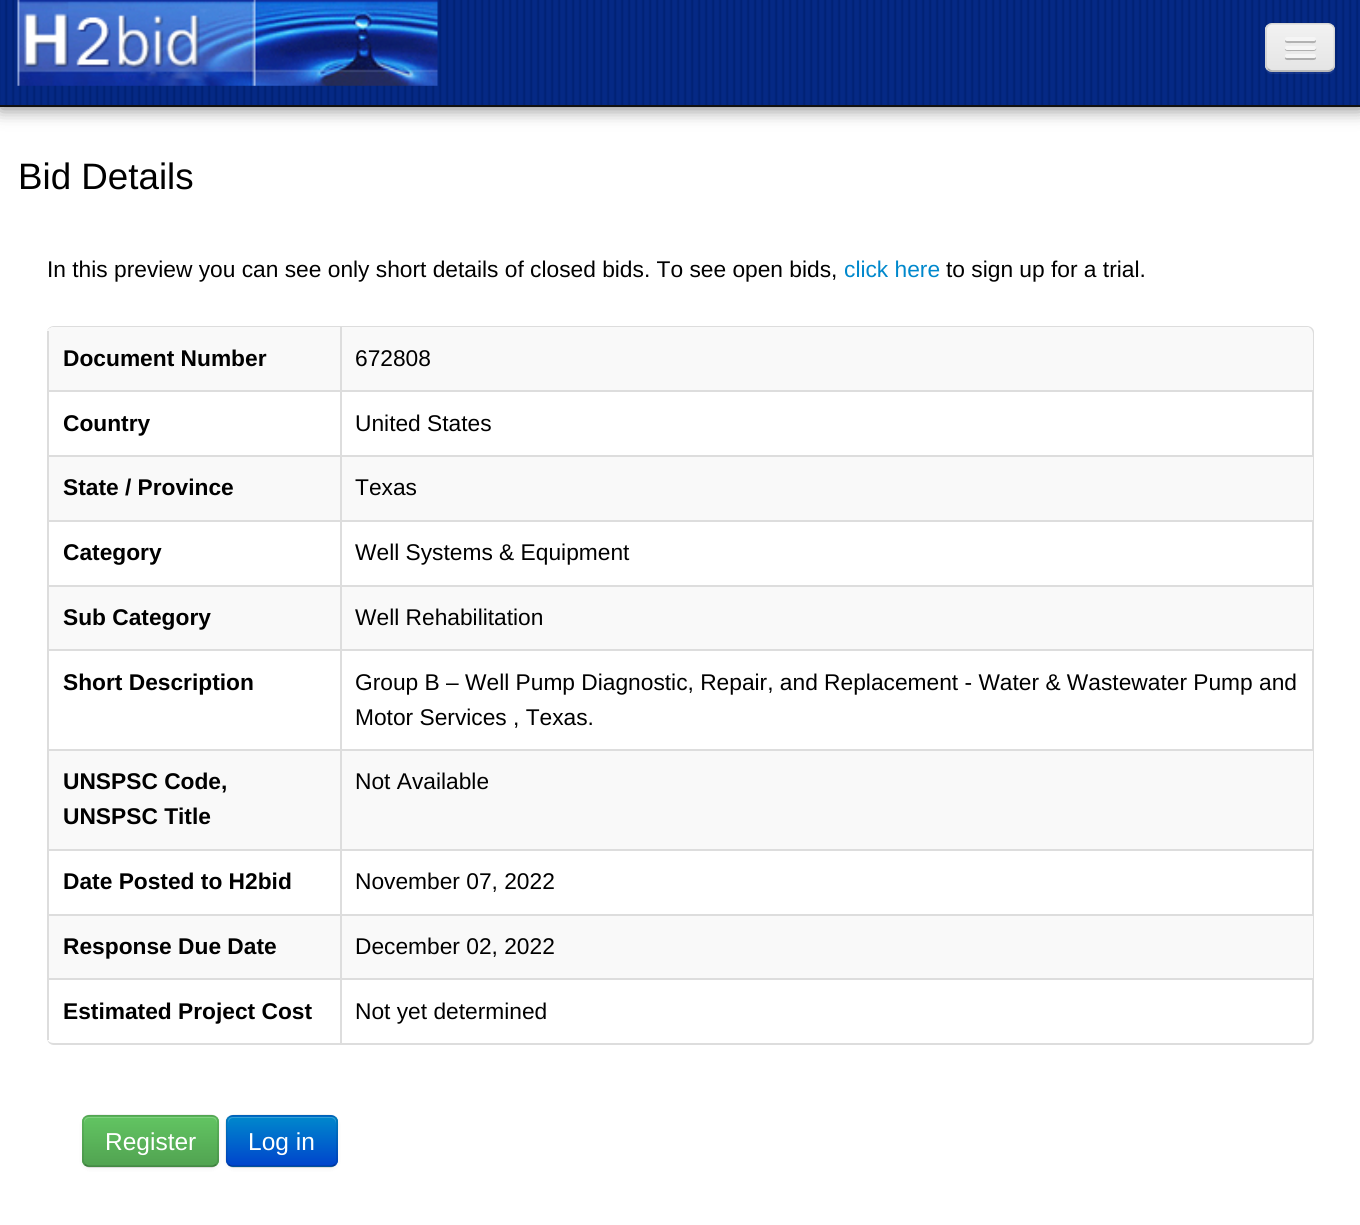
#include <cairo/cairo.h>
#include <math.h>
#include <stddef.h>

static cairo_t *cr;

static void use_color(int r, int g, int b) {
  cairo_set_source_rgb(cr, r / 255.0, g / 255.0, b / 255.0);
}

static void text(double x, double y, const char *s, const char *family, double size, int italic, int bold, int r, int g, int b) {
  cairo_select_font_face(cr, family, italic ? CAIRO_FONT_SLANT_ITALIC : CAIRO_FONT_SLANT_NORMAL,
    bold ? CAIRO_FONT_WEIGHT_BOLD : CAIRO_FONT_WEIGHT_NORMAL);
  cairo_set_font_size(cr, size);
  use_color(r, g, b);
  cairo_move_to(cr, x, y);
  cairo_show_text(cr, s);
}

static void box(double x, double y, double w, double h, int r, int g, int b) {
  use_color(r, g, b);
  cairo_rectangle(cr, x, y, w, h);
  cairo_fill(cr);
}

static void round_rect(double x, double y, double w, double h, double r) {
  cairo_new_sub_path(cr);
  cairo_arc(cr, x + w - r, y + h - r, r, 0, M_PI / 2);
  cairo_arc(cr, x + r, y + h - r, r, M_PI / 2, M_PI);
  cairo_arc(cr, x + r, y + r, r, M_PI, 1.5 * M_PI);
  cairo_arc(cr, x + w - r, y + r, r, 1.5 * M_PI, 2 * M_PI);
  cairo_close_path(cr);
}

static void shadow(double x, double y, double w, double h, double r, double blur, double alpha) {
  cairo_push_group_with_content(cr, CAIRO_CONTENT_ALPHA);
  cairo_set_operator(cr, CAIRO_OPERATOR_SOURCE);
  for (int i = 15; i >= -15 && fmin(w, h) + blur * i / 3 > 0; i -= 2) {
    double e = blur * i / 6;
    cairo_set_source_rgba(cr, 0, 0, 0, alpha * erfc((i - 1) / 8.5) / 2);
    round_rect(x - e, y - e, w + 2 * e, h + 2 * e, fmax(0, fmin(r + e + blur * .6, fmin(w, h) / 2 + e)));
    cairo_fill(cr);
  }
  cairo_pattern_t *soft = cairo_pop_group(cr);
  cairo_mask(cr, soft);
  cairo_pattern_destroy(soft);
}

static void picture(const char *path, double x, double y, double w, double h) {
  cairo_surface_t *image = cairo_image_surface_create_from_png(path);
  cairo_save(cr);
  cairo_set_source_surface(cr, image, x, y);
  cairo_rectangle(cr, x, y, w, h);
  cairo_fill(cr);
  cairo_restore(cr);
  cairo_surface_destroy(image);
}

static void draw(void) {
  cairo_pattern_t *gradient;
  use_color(255, 255, 255);
  cairo_paint(cr);
  use_color(0, 0, 0);
  shadow(0, 2, 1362, 107, 0, 9, 0.4);
  shadow(0, 2, 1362, 107, 0, 9, 0.1);
  picture("img_01.png", 0, 0, 1360, 105);
  box(0, 105, 1360, 2, 17, 17, 17);
  picture("img_02.png", 17, 0, 421, 86);
  cairo_set_source_rgba(cr, 1, 1, 1, 0.07);
  cairo_new_path(cr);
  cairo_move_to(cr, 1265, 30);
  cairo_line_to(cr, 1265, 67);
  cairo_curve_to(cr, 1265, 71, 1268, 74, 1272, 74);
  cairo_line_to(cr, 1328, 74);
  cairo_curve_to(cr, 1332, 74, 1335, 71, 1335, 67);
  cairo_curve_to(cr, 1334, 70, 1331, 72, 1328, 72);
  cairo_line_to(cr, 1272, 72);
  cairo_curve_to(cr, 1268, 72, 1265, 69, 1265, 65);
  cairo_close_path(cr);
  cairo_fill(cr);
  use_color(237, 237, 237);
  round_rect(1265, 23, 70, 49, 7);
  cairo_fill(cr);
  cairo_save(cr);
  round_rect(1265, 23, 70, 49, 7);
  cairo_clip(cr);
  gradient = cairo_pattern_create_linear(1300, 24, 1300, 70);
  cairo_pattern_add_color_stop_rgba(gradient, 0, 0.949, 0.949, 0.949, 1);
  cairo_pattern_add_color_stop_rgba(gradient, 1, 0.898, 0.898, 0.898, 1);
  cairo_set_source(cr, gradient);
  cairo_pattern_destroy(gradient);
  cairo_rectangle(cr, 1265, 25, 70, 45);
  cairo_fill(cr);
  cairo_restore(cr);
  cairo_new_path(cr);
  cairo_move_to(cr, 1332.5, 69);
  cairo_curve_to(cr, 1331.5, 70, 1330, 71, 1328, 71);
  cairo_line_to(cr, 1272, 71);
  cairo_curve_to(cr, 1270.5, 71, 1269, 70, 1268, 69);
  cairo_set_source_rgba(cr, 0, 0, 0, 0.25);
  cairo_set_line_width(cr, 1.8);
  cairo_stroke(cr);
  cairo_new_path(cr);
  cairo_move_to(cr, 1268, 69);
  cairo_curve_to(cr, 1267, 68, 1266, 66.5, 1266, 65);
  cairo_line_to(cr, 1266, 30);
  cairo_curve_to(cr, 1266, 28, 1267, 26.5, 1268, 25.5);
  cairo_curve_to(cr, 1269, 24.5, 1270.5, 23.5, 1272, 23.5);
  cairo_line_to(cr, 1328, 23.5);
  cairo_curve_to(cr, 1330, 23.5, 1331.5, 24.5, 1332.5, 25.5);
  cairo_curve_to(cr, 1333.5, 26.5, 1334.5, 28, 1334.5, 30);
  cairo_line_to(cr, 1334.5, 65);
  cairo_curve_to(cr, 1334.5, 66.5, 1333.5, 68, 1332.5, 69);
  cairo_set_source_rgba(cr, 0, 0, 0, 0.1);
  cairo_stroke(cr);
  use_color(178, 178, 178);
  cairo_new_path(cr);
  cairo_move_to(cr, 1285.5, 40);
  cairo_curve_to(cr, 1283, 44, 1291, 43, 1291.5, 43);
  cairo_line_to(cr, 1309.5, 43);
  cairo_curve_to(cr, 1310.5, 43, 1315.5, 44, 1316, 41.5);
  cairo_curve_to(cr, 1316, 41, 1316, 40, 1315.5, 39.5);
  cairo_line_to(cr, 1314.5, 40);
  cairo_curve_to(cr, 1312, 40.5, 1286, 40.5, 1285.5, 40);
  cairo_close_path(cr);
  cairo_fill(cr);
  use_color(245, 245, 245);
  round_rect(1285, 37, 31, 4, 2);
  cairo_fill(cr);
  use_color(176, 176, 176);
  cairo_new_path(cr);
  cairo_move_to(cr, 1285, 48.5);
  cairo_curve_to(cr, 1284, 52, 1290.5, 51, 1291.5, 51);
  cairo_line_to(cr, 1309.5, 51);
  cairo_curve_to(cr, 1310.5, 51, 1317.5, 52, 1316, 48);
  cairo_line_to(cr, 1314.5, 49);
  cairo_line_to(cr, 1286, 49);
  cairo_close_path(cr);
  cairo_fill(cr);
  use_color(245, 245, 245);
  round_rect(1285, 46, 31, 4, 2);
  cairo_fill(cr);
  use_color(174, 174, 174);
  cairo_new_path(cr);
  cairo_move_to(cr, 1285, 57.5);
  cairo_curve_to(cr, 1284, 61, 1290.5, 60, 1291.5, 60);
  cairo_line_to(cr, 1309.5, 60);
  cairo_curve_to(cr, 1310, 60, 1318, 61, 1315.5, 57);
  cairo_line_to(cr, 1314.5, 57.5);
  cairo_line_to(cr, 1286, 57.5);
  cairo_close_path(cr);
  cairo_fill(cr);
  use_color(245, 245, 245);
  round_rect(1285, 54, 31, 4, 2);
  cairo_fill(cr);
  use_color(221, 221, 221);
  cairo_set_fill_rule(cr, CAIRO_FILL_RULE_EVEN_ODD);
  cairo_new_path(cr);
  cairo_move_to(cr, 54, 326);
  cairo_line_to(cr, 1307, 326);
  cairo_curve_to(cr, 1311, 326, 1314, 329, 1314, 332);
  cairo_line_to(cr, 1314, 1038);
  cairo_curve_to(cr, 1314, 1042, 1311, 1045, 1307, 1045);
  cairo_line_to(cr, 54, 1045);
  cairo_curve_to(cr, 50, 1045, 47, 1042, 47, 1038);
  cairo_line_to(cr, 47, 332);
  cairo_curve_to(cr, 47, 329, 50, 326, 54, 326);
  cairo_close_path(cr);
  cairo_move_to(cr, 54, 327);
  cairo_line_to(cr, 1307, 327);
  cairo_curve_to(cr, 1310, 327, 1312, 330, 1312, 332);
  cairo_line_to(cr, 1312, 1038);
  cairo_curve_to(cr, 1312, 1041, 1310, 1043, 1307, 1043);
  cairo_line_to(cr, 54, 1043);
  cairo_curve_to(cr, 50, 1043, 47, 1041, 47, 1038);
  cairo_line_to(cr, 47, 332);
  cairo_curve_to(cr, 47, 330, 50, 327, 54, 327);
  cairo_close_path(cr);
  cairo_fill(cr);
  use_color(249, 249, 249);
  cairo_new_path(cr);
  cairo_move_to(cr, 54, 327);
  cairo_line_to(cr, 340, 327);
  cairo_line_to(cr, 340, 390);
  cairo_line_to(cr, 47, 390);
  cairo_line_to(cr, 47, 334);
  cairo_curve_to(cr, 47, 330, 50, 327, 54, 327);
  cairo_close_path(cr);
  cairo_fill(cr);
  box(47, 331, 2, 59, 221, 221, 221);
  use_color(249, 249, 249);
  cairo_new_path(cr);
  cairo_move_to(cr, 340, 327);
  cairo_line_to(cr, 1306, 327);
  cairo_curve_to(cr, 1310, 327, 1313, 330, 1313, 334);
  cairo_line_to(cr, 1313, 390);
  cairo_line_to(cr, 340, 390);
  cairo_close_path(cr);
  cairo_fill(cr);
  box(340, 327, 2, 63, 221, 221, 221);
  box(47, 390, 1266, 2, 221, 221, 221);
  box(47, 390, 2, 65, 221, 221, 221);
  box(340, 390, 2, 65, 221, 221, 221);
  box(49, 457, 291, 63, 249, 249, 249);
  box(47, 455, 1266, 2, 221, 221, 221);
  box(47, 455, 2, 65, 221, 221, 221);
  box(342, 457, 971, 63, 249, 249, 249);
  box(340, 455, 2, 65, 221, 221, 221);
  box(47, 520, 1266, 2, 221, 221, 221);
  box(47, 520, 2, 65, 221, 221, 221);
  box(340, 520, 2, 65, 221, 221, 221);
  box(49, 587, 291, 62, 249, 249, 249);
  box(47, 585, 1266, 2, 221, 221, 221);
  box(47, 585, 2, 64, 221, 221, 221);
  box(342, 587, 971, 62, 249, 249, 249);
  box(340, 585, 2, 64, 221, 221, 221);
  box(47, 649, 1266, 2, 221, 221, 221);
  box(47, 649, 2, 100, 221, 221, 221);
  box(340, 649, 2, 100, 221, 221, 221);
  box(49, 751, 291, 98, 249, 249, 249);
  box(47, 749, 1266, 2, 221, 221, 221);
  box(47, 749, 2, 100, 221, 221, 221);
  box(342, 751, 971, 98, 249, 249, 249);
  box(340, 749, 2, 100, 221, 221, 221);
  box(47, 849, 1266, 2, 221, 221, 221);
  box(47, 849, 2, 65, 221, 221, 221);
  box(340, 849, 2, 65, 221, 221, 221);
  box(49, 916, 291, 62, 249, 249, 249);
  box(47, 914, 1266, 2, 221, 221, 221);
  box(47, 914, 2, 64, 221, 221, 221);
  box(342, 916, 971, 62, 249, 249, 249);
  box(340, 914, 2, 64, 221, 221, 221);
  box(47, 978, 1266, 2, 221, 221, 221);
  box(47, 978, 2, 62, 221, 221, 221);
  box(340, 978, 2, 65, 221, 221, 221);
  use_color(0, 0, 0);
  shadow(82, 1117, 137, 52, 7, 2, 0.05);
  use_color(91, 183, 91);
  round_rect(82, 1115, 137, 52, 7);
  cairo_fill(cr);
  cairo_save(cr);
  cairo_set_fill_rule(cr, CAIRO_FILL_RULE_WINDING);
  round_rect(82, 1115, 137, 52, 7);
  cairo_clip(cr);
  gradient = cairo_pattern_create_linear(151, 1117, 151, 1166);
  cairo_pattern_add_color_stop_rgba(gradient, 0, 0.384, 0.769, 0.384, 1);
  cairo_pattern_add_color_stop_rgba(gradient, 1, 0.318, 0.639, 0.318, 1);
  cairo_set_source(cr, gradient);
  cairo_pattern_destroy(gradient);
  cairo_rectangle(cr, 82, 1117, 137, 49);
  cairo_fill(cr);
  cairo_restore(cr);
  use_color(129, 208, 129);
  cairo_set_fill_rule(cr, CAIRO_FILL_RULE_WINDING);
  cairo_new_path(cr);
  cairo_move_to(cr, 89, 1118);
  cairo_line_to(cr, 212, 1118);
  cairo_curve_to(cr, 215, 1118, 217, 1121, 217, 1124);
  cairo_line_to(cr, 217, 1122);
  cairo_curve_to(cr, 217, 1119, 215, 1117, 212, 1117);
  cairo_line_to(cr, 89, 1117);
  cairo_curve_to(cr, 86, 1117, 84, 1119, 84, 1122);
  cairo_line_to(cr, 84, 1124);
  cairo_curve_to(cr, 84, 1121, 86, 1118, 89, 1118);
  cairo_close_path(cr);
  cairo_fill(cr);
  cairo_new_path(cr);
  cairo_move_to(cr, 216, 1164.5);
  cairo_curve_to(cr, 215, 1165.5, 213.5, 1166.5, 212, 1166.5);
  cairo_line_to(cr, 89, 1166.5);
  cairo_curve_to(cr, 87.5, 1166.5, 86, 1165.5, 85, 1164.5);
  cairo_set_source_rgba(cr, 0, 0, 0, 0.25);
  cairo_stroke(cr);
  cairo_new_path(cr);
  cairo_move_to(cr, 85, 1164.5);
  cairo_curve_to(cr, 82, 1162, 83, 1157, 83, 1154);
  cairo_line_to(cr, 83, 1141);
  cairo_curve_to(cr, 83, 1111.5, 79, 1115.5, 109.5, 1115.5);
  cairo_line_to(cr, 191.5, 1115.5);
  cairo_curve_to(cr, 222, 1115.5, 218, 1111.5, 218, 1141);
  cairo_line_to(cr, 218, 1154);
  cairo_curve_to(cr, 218, 1157, 219, 1162, 216, 1164.5);
  cairo_set_source_rgba(cr, 0, 0, 0, 0.1);
  cairo_stroke(cr);
  use_color(0, 0, 0);
  shadow(226, 1117, 112, 52, 7, 2, 0.05);
  use_color(0, 109, 204);
  round_rect(226, 1115, 112, 52, 7);
  cairo_fill(cr);
  cairo_save(cr);
  round_rect(226, 1115, 112, 52, 7);
  cairo_clip(cr);
  gradient = cairo_pattern_create_linear(282, 1117, 282, 1166);
  cairo_pattern_add_color_stop_rgba(gradient, 0, 0, 0.533, 0.8, 1);
  cairo_pattern_add_color_stop_rgba(gradient, 1, 0, 0.267, 0.8, 1);
  cairo_set_source(cr, gradient);
  cairo_pattern_destroy(gradient);
  cairo_rectangle(cr, 226, 1117, 112, 49);
  cairo_fill(cr);
  cairo_restore(cr);
  cairo_set_source_rgba(cr, 1, 1, 1, 0.2);
  cairo_new_path(cr);
  cairo_move_to(cr, 233, 1118);
  cairo_line_to(cr, 331, 1118);
  cairo_curve_to(cr, 334, 1118, 336, 1121, 336, 1124);
  cairo_line_to(cr, 336, 1122);
  cairo_curve_to(cr, 336, 1119, 334, 1117, 331, 1117);
  cairo_line_to(cr, 233, 1117);
  cairo_curve_to(cr, 230, 1117, 228, 1119, 228, 1122);
  cairo_line_to(cr, 228, 1124);
  cairo_curve_to(cr, 228, 1121, 230, 1118, 233, 1118);
  cairo_close_path(cr);
  cairo_fill(cr);
  cairo_new_path(cr);
  cairo_move_to(cr, 335, 1164.5);
  cairo_curve_to(cr, 334, 1165.5, 332.5, 1166.5, 331, 1166.5);
  cairo_line_to(cr, 233, 1166.5);
  cairo_curve_to(cr, 231, 1166.5, 229.5, 1165.5, 228.5, 1164.5);
  cairo_set_source_rgba(cr, 0, 0, 0, 0.25);
  cairo_stroke(cr);
  cairo_new_path(cr);
  cairo_move_to(cr, 228.5, 1164.5);
  cairo_curve_to(cr, 225.5, 1162, 226.5, 1157, 226.5, 1154);
  cairo_line_to(cr, 226.5, 1141);
  cairo_curve_to(cr, 226.5, 1113.5, 222, 1115.5, 249, 1115.5);
  cairo_line_to(cr, 314.5, 1115.5);
  cairo_curve_to(cr, 341.5, 1115.5, 337, 1113.5, 337, 1141);
  cairo_line_to(cr, 337, 1154);
  cairo_curve_to(cr, 337, 1157, 338, 1162, 335, 1164.5);
  cairo_set_source_rgba(cr, 0, 0, 0, 0.1);
  cairo_stroke(cr);
  text(18, 189, "Bid Details", "Liberation Sans", 36.75, 0, 0, 0, 0, 0);
  text(47, 277, "In this preview you can see only short details of closed bids. To see open bids,", "Liberation Sans", 22.75, 0, 0, 0, 0, 0);
  text(844, 277, "click here", "Liberation Sans", 22.75, 0, 0, 0, 136, 204);
  text(946, 277, "to sign up for a trial.", "Liberation Sans", 22.75, 0, 0, 0, 0, 0);
  text(63, 366, "Document Number", "Liberation Sans", 22.75, 0, 1, 0, 0, 0);
  text(355, 366, "672808", "Liberation Sans", 22.75, 0, 0, 0, 0, 0);
  text(63, 431, "Country", "Liberation Sans", 22.75, 0, 1, 0, 0, 0);
  text(355, 431, "United States", "Liberation Sans", 22.75, 0, 0, 0, 0, 0);
  text(63, 495, "State / Province", "Liberation Sans", 22.75, 0, 1, 0, 0, 0);
  text(355, 495, "Texas", "Liberation Sans", 22.75, 0, 0, 0, 0, 0);
  text(63, 560, "Category", "Liberation Sans", 22.75, 0, 1, 0, 0, 0);
  text(355, 560, "Well Systems & Equipment", "Liberation Sans", 22.75, 0, 0, 0, 0, 0);
  text(63, 625, "Sub Category", "Liberation Sans", 22.75, 0, 1, 0, 0, 0);
  text(355, 625, "Well Rehabilitation", "Liberation Sans", 22.75, 0, 0, 0, 0, 0);
  text(63, 690, "Short Description", "Liberation Sans", 22.75, 0, 1, 0, 0, 0);
  text(355, 690, "Group B – Well Pump Diagnostic, Repair, and Replacement - Water & Wastewater Pump and", "Liberation Sans", 22.75, 0, 0, 0, 0, 0);
  text(355, 725, "Motor Services , Texas.", "Liberation Sans", 22.75, 0, 0, 0, 0, 0);
  text(63, 789, "UNSPSC Code,", "Liberation Sans", 22.75, 0, 1, 0, 0, 0);
  text(63, 824, "UNSPSC Title", "Liberation Sans", 22.75, 0, 1, 0, 0, 0);
  text(355, 789, "Not Available", "Liberation Sans", 22.75, 0, 0, 0, 0, 0);
  text(63, 889, "Date Posted to H2bid", "Liberation Sans", 22.75, 0, 1, 0, 0, 0);
  text(355, 889, "November 07, 2022", "Liberation Sans", 22.75, 0, 0, 0, 0, 0);
  text(63, 954, "Response Due Date", "Liberation Sans", 22.75, 0, 1, 0, 0, 0);
  text(355, 954, "December 02, 2022", "Liberation Sans", 22.75, 0, 0, 0, 0, 0);
  text(63, 1019, "Estimated Project Cost", "Liberation Sans", 22.75, 0, 1, 0, 0, 0);
  text(355, 1019, "Not yet determined", "Liberation Sans", 22.75, 0, 0, 0, 0, 0);
  text(105, 1150, "Register", "Liberation Sans", 24.5, 0, 0, 255, 255, 255);
  text(248, 1150, "Log in", "Liberation Sans", 24.5, 0, 0, 255, 255, 255);
}

int main(void) {
  cairo_surface_t *surface = cairo_image_surface_create(CAIRO_FORMAT_RGB24, 1360, 1225);
  cr = cairo_create(surface);
  cairo_font_options_t *options = cairo_font_options_create();
  cairo_font_options_set_hint_metrics(options, CAIRO_HINT_METRICS_OFF);
  cairo_font_options_set_hint_style(options, CAIRO_HINT_STYLE_NONE);
  cairo_set_font_options(cr, options);
  cairo_set_miter_limit(cr, 4);
  draw();
  cairo_surface_write_to_png(surface, "out.png");
  cairo_font_options_destroy(options);
  cairo_destroy(cr);
  cairo_surface_destroy(surface);
  return 0;
}
